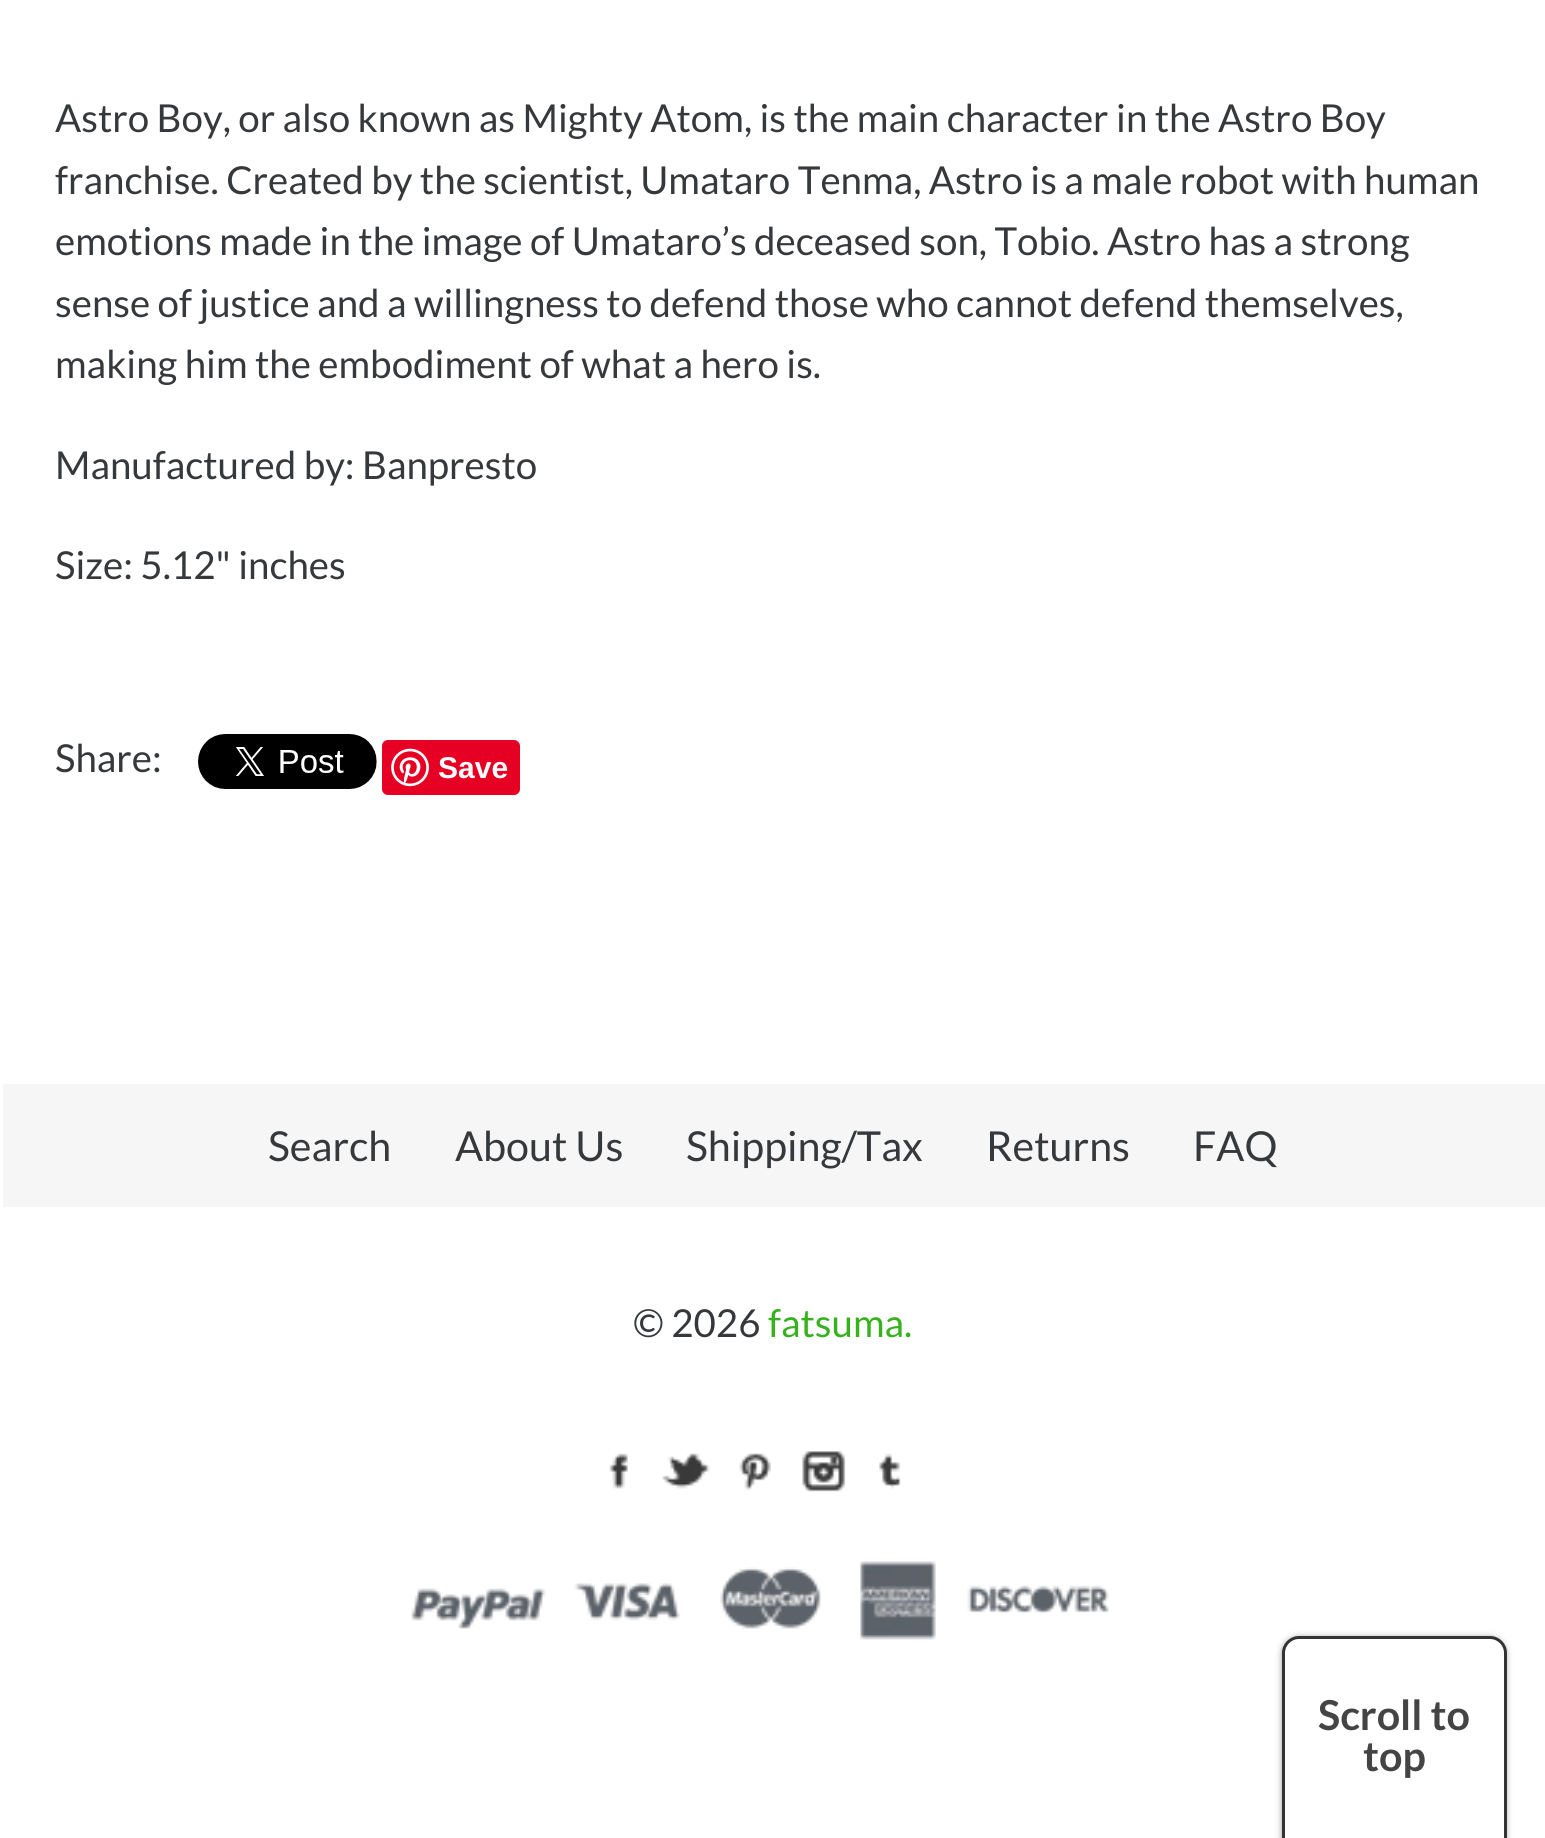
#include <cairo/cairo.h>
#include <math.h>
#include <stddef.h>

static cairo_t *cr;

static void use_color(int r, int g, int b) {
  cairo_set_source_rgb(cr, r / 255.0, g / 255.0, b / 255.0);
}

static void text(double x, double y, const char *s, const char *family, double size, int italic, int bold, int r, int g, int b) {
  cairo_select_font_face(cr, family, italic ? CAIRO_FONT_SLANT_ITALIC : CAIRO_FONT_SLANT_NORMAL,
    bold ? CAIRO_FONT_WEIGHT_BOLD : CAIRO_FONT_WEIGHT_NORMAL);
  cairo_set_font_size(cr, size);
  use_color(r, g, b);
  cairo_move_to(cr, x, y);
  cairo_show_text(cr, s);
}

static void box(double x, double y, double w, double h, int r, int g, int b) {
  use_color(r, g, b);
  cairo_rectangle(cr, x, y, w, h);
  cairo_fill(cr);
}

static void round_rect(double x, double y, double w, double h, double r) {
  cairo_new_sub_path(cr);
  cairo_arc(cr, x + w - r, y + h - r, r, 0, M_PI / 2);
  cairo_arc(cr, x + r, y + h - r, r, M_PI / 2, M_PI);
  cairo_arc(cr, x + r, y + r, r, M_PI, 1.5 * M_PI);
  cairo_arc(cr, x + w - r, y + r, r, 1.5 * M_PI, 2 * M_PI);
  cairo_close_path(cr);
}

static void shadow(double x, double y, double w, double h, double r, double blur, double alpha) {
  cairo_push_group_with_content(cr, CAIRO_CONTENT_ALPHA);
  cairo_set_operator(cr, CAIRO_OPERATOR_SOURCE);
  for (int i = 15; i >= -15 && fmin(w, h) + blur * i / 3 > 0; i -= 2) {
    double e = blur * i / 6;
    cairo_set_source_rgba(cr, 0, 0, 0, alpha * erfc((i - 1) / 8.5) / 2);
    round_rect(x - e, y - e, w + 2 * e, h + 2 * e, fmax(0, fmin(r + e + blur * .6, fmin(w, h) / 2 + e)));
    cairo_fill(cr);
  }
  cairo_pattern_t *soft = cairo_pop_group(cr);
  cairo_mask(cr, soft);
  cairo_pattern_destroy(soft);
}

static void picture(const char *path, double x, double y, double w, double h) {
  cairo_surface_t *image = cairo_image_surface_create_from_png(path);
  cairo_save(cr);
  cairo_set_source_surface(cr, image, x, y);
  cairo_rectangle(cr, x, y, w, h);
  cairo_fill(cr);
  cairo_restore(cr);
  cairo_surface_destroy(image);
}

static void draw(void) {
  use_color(255, 255, 255);
  cairo_paint(cr);
  picture("img_01.png", 198, 734, 179, 55);
  use_color(230, 0, 35);
  round_rect(382, 740, 138, 55, 6);
  cairo_fill(cr);
  picture("img_02.png", 391, 748, 38, 39);
  box(3, 1084, 1542, 123, 246, 246, 246);
  picture("img_03.png", 609, 1453, 19, 36);
  picture("img_04.png", 662, 1453, 49, 36);
  picture("img_05.png", 739, 1453, 32, 38);
  picture("img_06.png", 802, 1451, 44, 41);
  picture("img_07.png", 879, 1453, 22, 36);
  picture("img_08.png", 411, 1588, 135, 41);
  picture("img_09.png", 574, 1583, 106, 38);
  picture("img_10.png", 720, 1567, 101, 62);
  picture("img_11.png", 860, 1561, 76, 79);
  picture("img_12.png", 967, 1585, 142, 29);
  use_color(85, 85, 85);
  shadow(1284, 1639, 220, 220, 14, 4, 1);
  use_color(255, 255, 255);
  cairo_new_path(cr);
  cairo_move_to(cr, 1299, 1637.5);
  cairo_line_to(cr, 1490, 1637.5);
  cairo_curve_to(cr, 1498.5, 1637.5, 1505.5, 1644.5, 1505.5, 1653);
  cairo_line_to(cr, 1505.5, 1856.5);
  cairo_line_to(cr, 1283.5, 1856.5);
  cairo_line_to(cr, 1283.5, 1653);
  cairo_curve_to(cr, 1283.5, 1644.5, 1290.5, 1637.5, 1299, 1637.5);
  cairo_close_path(cr);
  cairo_fill_preserve(cr);
  use_color(51, 51, 51);
  cairo_set_line_width(cr, 3);
  cairo_stroke(cr);
  text(55, 132, "Astro Boy, or also known as Mighty Atom, is the main character in the Astro Boy", "Lato", 38.5, 0, 0, 54, 57, 59);
  text(55, 194, "franchise. Created by the scientist, Umataro Tenma, Astro is a male robot with human", "Lato", 38.5, 0, 0, 54, 57, 59);
  text(55, 255, "emotions made in the image of Umataro’s deceased son, Tobio. Astro has a strong", "Lato", 38.5, 0, 0, 54, 57, 59);
  text(55, 317, "sense of justice and a willingness to defend those who cannot defend themselves,", "Lato", 38.5, 0, 0, 54, 57, 59);
  text(55, 378, "making him the embodiment of what a hero is.", "Lato", 38.5, 0, 0, 54, 57, 59);
  text(55, 479, "Manufactured by: Banpresto", "Lato", 38.5, 0, 0, 54, 57, 59);
  text(55, 579, "Size: 5.12\" inches", "Lato", 38.5, 0, 0, 54, 57, 59);
  text(55, 772, "Share:", "Lato", 38.5, 0, 0, 54, 57, 59);
  text(438, 778, "Save", "Liberation Sans", 30, 0, 1, 255, 255, 255);
  text(268, 1161, "Search", "Lato", 41.25, 0, 0, 54, 57, 59);
  text(455, 1161, "About Us", "Lato", 41.25, 0, 0, 54, 57, 59);
  text(686, 1161, "Shipping/Tax", "Lato", 41.25, 0, 0, 54, 57, 59);
  text(986, 1161, "Returns", "Lato", 41.25, 0, 0, 54, 57, 59);
  text(1193, 1161, "FAQ", "Lato", 41.25, 0, 0, 54, 57, 59);
  text(633, 1337, "© 2026", "Lato", 38.5, 0, 0, 54, 57, 59);
  text(768, 1337, "fatsuma.", "Lato", 38.5, 0, 0, 55, 177, 30);
  text(1318, 1730, "Scroll to", "Lato", 41.25, 0, 1, 68, 68, 68);
  text(1363, 1771, "top", "Lato", 41.25, 0, 1, 68, 68, 68);
}

int main(void) {
  cairo_surface_t *surface = cairo_image_surface_create(CAIRO_FORMAT_RGB24, 1545, 1838);
  cr = cairo_create(surface);
  cairo_font_options_t *options = cairo_font_options_create();
  cairo_font_options_set_hint_metrics(options, CAIRO_HINT_METRICS_OFF);
  cairo_font_options_set_hint_style(options, CAIRO_HINT_STYLE_NONE);
  cairo_set_font_options(cr, options);
  cairo_set_miter_limit(cr, 4);
  draw();
  cairo_surface_write_to_png(surface, "out.png");
  cairo_font_options_destroy(options);
  cairo_destroy(cr);
  cairo_surface_destroy(surface);
  return 0;
}
